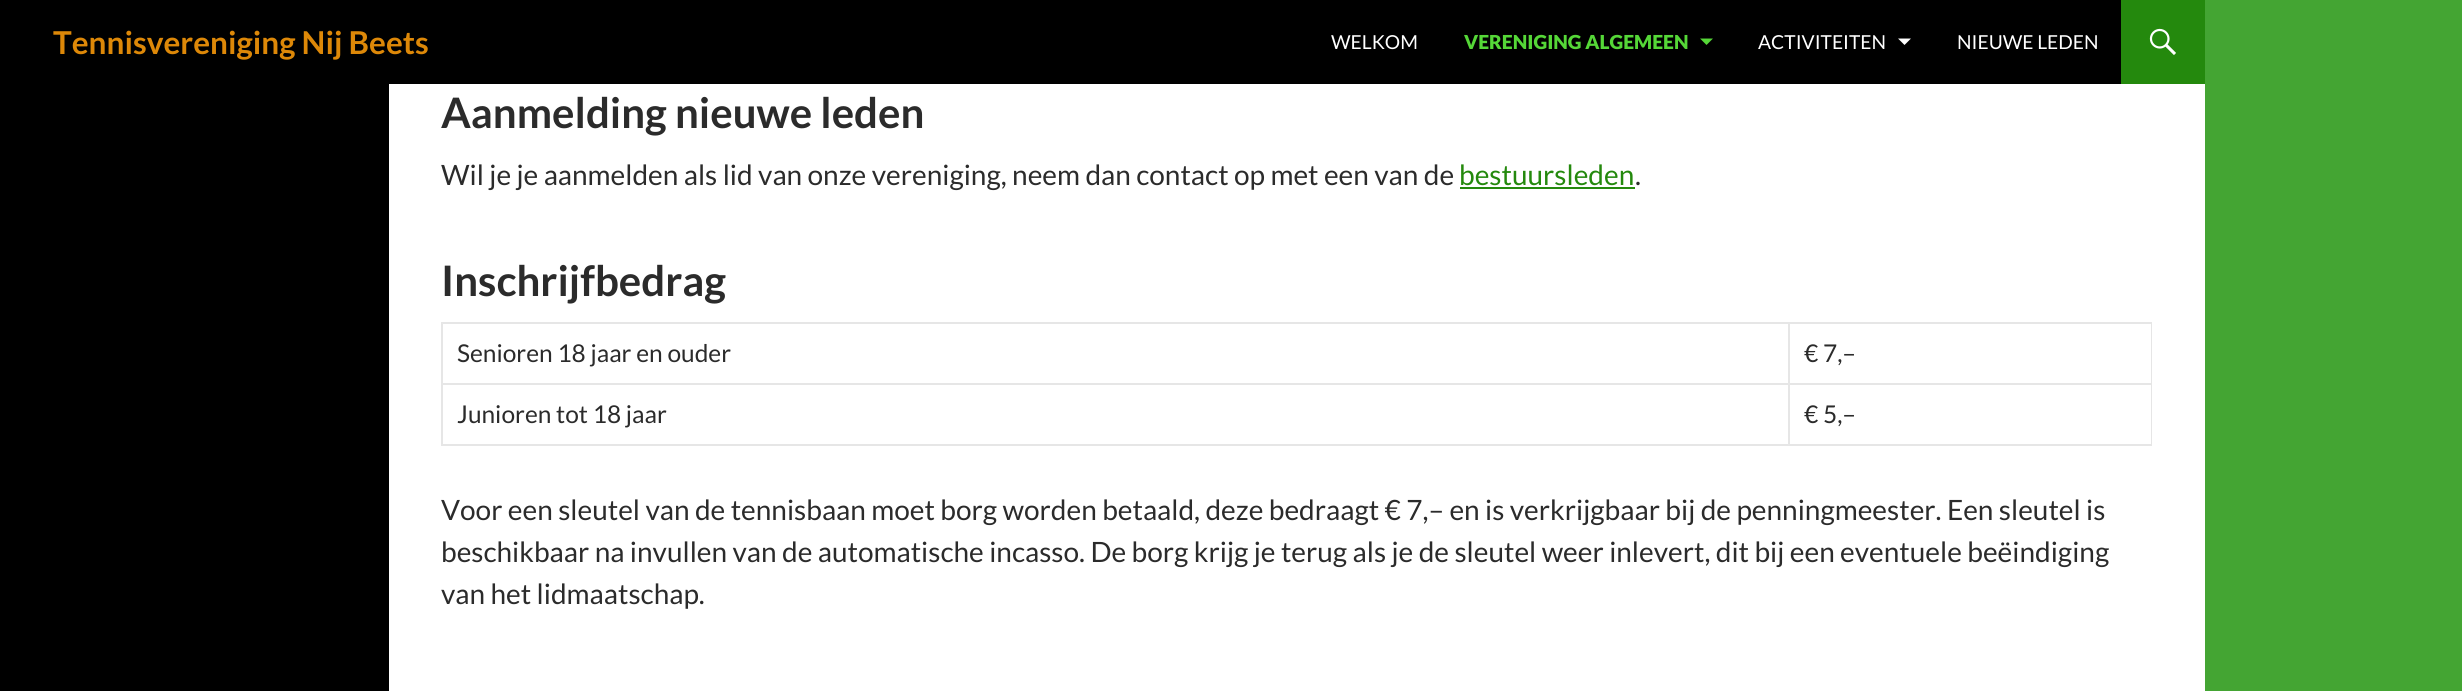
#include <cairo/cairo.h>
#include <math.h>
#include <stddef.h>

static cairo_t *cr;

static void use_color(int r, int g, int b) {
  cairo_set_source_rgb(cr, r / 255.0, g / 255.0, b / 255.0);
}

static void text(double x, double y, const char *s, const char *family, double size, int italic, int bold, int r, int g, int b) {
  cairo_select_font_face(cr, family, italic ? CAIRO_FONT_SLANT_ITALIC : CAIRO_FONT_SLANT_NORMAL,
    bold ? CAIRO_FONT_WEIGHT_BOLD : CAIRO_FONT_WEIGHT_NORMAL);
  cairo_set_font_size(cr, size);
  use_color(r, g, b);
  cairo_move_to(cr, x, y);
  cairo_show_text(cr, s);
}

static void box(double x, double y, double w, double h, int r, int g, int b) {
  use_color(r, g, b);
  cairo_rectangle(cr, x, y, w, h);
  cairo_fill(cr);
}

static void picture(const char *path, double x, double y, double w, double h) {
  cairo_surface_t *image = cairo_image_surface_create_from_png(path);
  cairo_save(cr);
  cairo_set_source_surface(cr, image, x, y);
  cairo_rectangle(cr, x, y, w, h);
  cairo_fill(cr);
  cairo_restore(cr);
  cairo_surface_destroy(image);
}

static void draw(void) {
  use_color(68, 165, 51);
  cairo_paint(cr);
  box(389, 84, 1816, 607, 255, 255, 255);
  box(0, 0, 2121, 84, 0, 0, 0);
  use_color(85, 215, 55);
  cairo_new_path(cr);
  cairo_move_to(cr, 1700, 38.5);
  cairo_line_to(cr, 1706.5, 45);
  cairo_line_to(cr, 1713, 38.5);
  cairo_close_path(cr);
  cairo_fill(cr);
  use_color(255, 255, 255);
  cairo_new_path(cr);
  cairo_move_to(cr, 1898, 38.5);
  cairo_line_to(cr, 1904.5, 45);
  cairo_line_to(cr, 1911, 38.5);
  cairo_close_path(cr);
  cairo_fill(cr);
  box(2121, 0, 84, 84, 36, 137, 13);
  picture("img_01.png", 2149, 28, 27, 27);
  box(0, 84, 389, 607, 0, 0, 0);
  box(1460, 187, 175, 2, 36, 137, 13);
  use_color(230, 230, 230);
  cairo_new_path(cr);
  cairo_move_to(cr, 441, 322);
  cairo_line_to(cr, 2152, 322);
  cairo_line_to(cr, 2152, 324);
  cairo_line_to(cr, 443, 324);
  cairo_close_path(cr);
  cairo_fill(cr);
  cairo_set_source_rgba(cr, 0, 0, 0, 0.1);
  cairo_new_path(cr);
  cairo_move_to(cr, 441, 446);
  cairo_line_to(cr, 441, 322);
  cairo_line_to(cr, 443, 324);
  cairo_line_to(cr, 443, 446);
  cairo_close_path(cr);
  cairo_fill(cr);
  use_color(230, 230, 230);
  cairo_new_path(cr);
  cairo_move_to(cr, 1790, 324);
  cairo_line_to(cr, 1790, 385);
  cairo_line_to(cr, 1788, 383);
  cairo_line_to(cr, 1788, 324);
  cairo_close_path(cr);
  cairo_fill(cr);
  cairo_set_source_rgba(cr, 0, 0, 0, 0.1);
  cairo_new_path(cr);
  cairo_move_to(cr, 1790, 385);
  cairo_line_to(cr, 443, 385);
  cairo_line_to(cr, 443, 383);
  cairo_line_to(cr, 1788, 383);
  cairo_close_path(cr);
  cairo_fill(cr);
  use_color(230, 230, 230);
  cairo_new_path(cr);
  cairo_move_to(cr, 2152, 324);
  cairo_line_to(cr, 2152, 385);
  cairo_line_to(cr, 2151, 383);
  cairo_line_to(cr, 2151, 324);
  cairo_close_path(cr);
  cairo_fill(cr);
  cairo_set_source_rgba(cr, 0, 0, 0, 0.1);
  cairo_new_path(cr);
  cairo_move_to(cr, 2152, 385);
  cairo_line_to(cr, 1790, 385);
  cairo_line_to(cr, 1790, 383);
  cairo_line_to(cr, 2151, 383);
  cairo_close_path(cr);
  cairo_fill(cr);
  use_color(230, 230, 230);
  cairo_new_path(cr);
  cairo_move_to(cr, 1790, 385);
  cairo_line_to(cr, 1790, 446);
  cairo_line_to(cr, 1788, 444);
  cairo_line_to(cr, 1788, 385);
  cairo_close_path(cr);
  cairo_fill(cr);
  cairo_set_source_rgba(cr, 0, 0, 0, 0.1);
  cairo_new_path(cr);
  cairo_move_to(cr, 1790, 446);
  cairo_line_to(cr, 443, 446);
  cairo_line_to(cr, 443, 444);
  cairo_line_to(cr, 1788, 444);
  cairo_close_path(cr);
  cairo_fill(cr);
  use_color(230, 230, 230);
  cairo_new_path(cr);
  cairo_move_to(cr, 2152, 385);
  cairo_line_to(cr, 2152, 446);
  cairo_line_to(cr, 2151, 444);
  cairo_line_to(cr, 2151, 385);
  cairo_close_path(cr);
  cairo_fill(cr);
  cairo_set_source_rgba(cr, 0, 0, 0, 0.1);
  cairo_new_path(cr);
  cairo_move_to(cr, 2152, 446);
  cairo_line_to(cr, 1790, 446);
  cairo_line_to(cr, 1790, 444);
  cairo_line_to(cr, 2151, 444);
  cairo_close_path(cr);
  cairo_fill(cr);
  cairo_save(cr);
  cairo_rectangle(cr, 53, 0, 376, 84);
  cairo_clip(cr);
  text(53, 54, "Tennisvereniging Nij Beets", "Lato", 31.5, 0, 1, 221, 136, 8);
  cairo_restore(cr);
  text(1331, 49, "WELKOM", "Lato", 19.25, 0, 0, 255, 255, 255);
  text(1464, 49, "VERENIGING ALGEMEEN", "Lato Black", 19.25, 0, 0, 85, 215, 55);
  text(1758, 49, "ACTIVITEITEN", "Lato", 19.25, 0, 0, 255, 255, 255);
  text(1957, 49, "NIEUWE LEDEN", "Lato", 19.25, 0, 0, 255, 255, 255);
  text(441, 128, "Aanmelding nieuwe leden", "Lato", 42, 0, 1, 43, 43, 43);
  text(441, 185, "Wil je je aanmelden als lid van onze vereniging, neem dan contact op met een van de", "Lato", 28, 0, 0, 43, 43, 43);
  text(1459, 185, "bestuursleden", "Lato", 28, 0, 0, 36, 137, 13);
  text(1635, 185, ".", "Lato", 28, 0, 0, 43, 43, 43);
  text(441, 296, "Inschrijfbedrag", "Lato", 42, 0, 1, 43, 43, 43);
  text(457, 362, "Senioren 18 jaar en ouder", "Lato", 24.5, 0, 0, 43, 43, 43);
  text(1804, 362, "€ 7,–", "Lato", 24.5, 0, 0, 43, 43, 43);
  text(457, 423, "Junioren tot 18 jaar", "Lato", 24.5, 0, 0, 43, 43, 43);
  text(1804, 423, "€ 5,–", "Lato", 24.5, 0, 0, 43, 43, 43);
  text(441, 520, "Voor een sleutel van de tennisbaan moet borg worden betaald, deze bedraagt € 7,– en is verkrijgbaar bij de penningmeester. Een sleutel is", "Lato", 28, 0, 0, 43, 43, 43);
  text(441, 562, "beschikbaar na invullen van de automatische incasso. De borg krijg je terug als je de sleutel weer inlevert, dit bij een eventuele beëindiging", "Lato", 28, 0, 0, 43, 43, 43);
  text(441, 604, "van het lidmaatschap.", "Lato", 28, 0, 0, 43, 43, 43);
}

int main(void) {
  cairo_surface_t *surface = cairo_image_surface_create(CAIRO_FORMAT_RGB24, 2462, 691);
  cr = cairo_create(surface);
  cairo_font_options_t *options = cairo_font_options_create();
  cairo_font_options_set_hint_metrics(options, CAIRO_HINT_METRICS_OFF);
  cairo_font_options_set_hint_style(options, CAIRO_HINT_STYLE_NONE);
  cairo_set_font_options(cr, options);
  cairo_set_miter_limit(cr, 4);
  draw();
  cairo_surface_write_to_png(surface, "out.png");
  cairo_font_options_destroy(options);
  cairo_destroy(cr);
  cairo_surface_destroy(surface);
  return 0;
}
